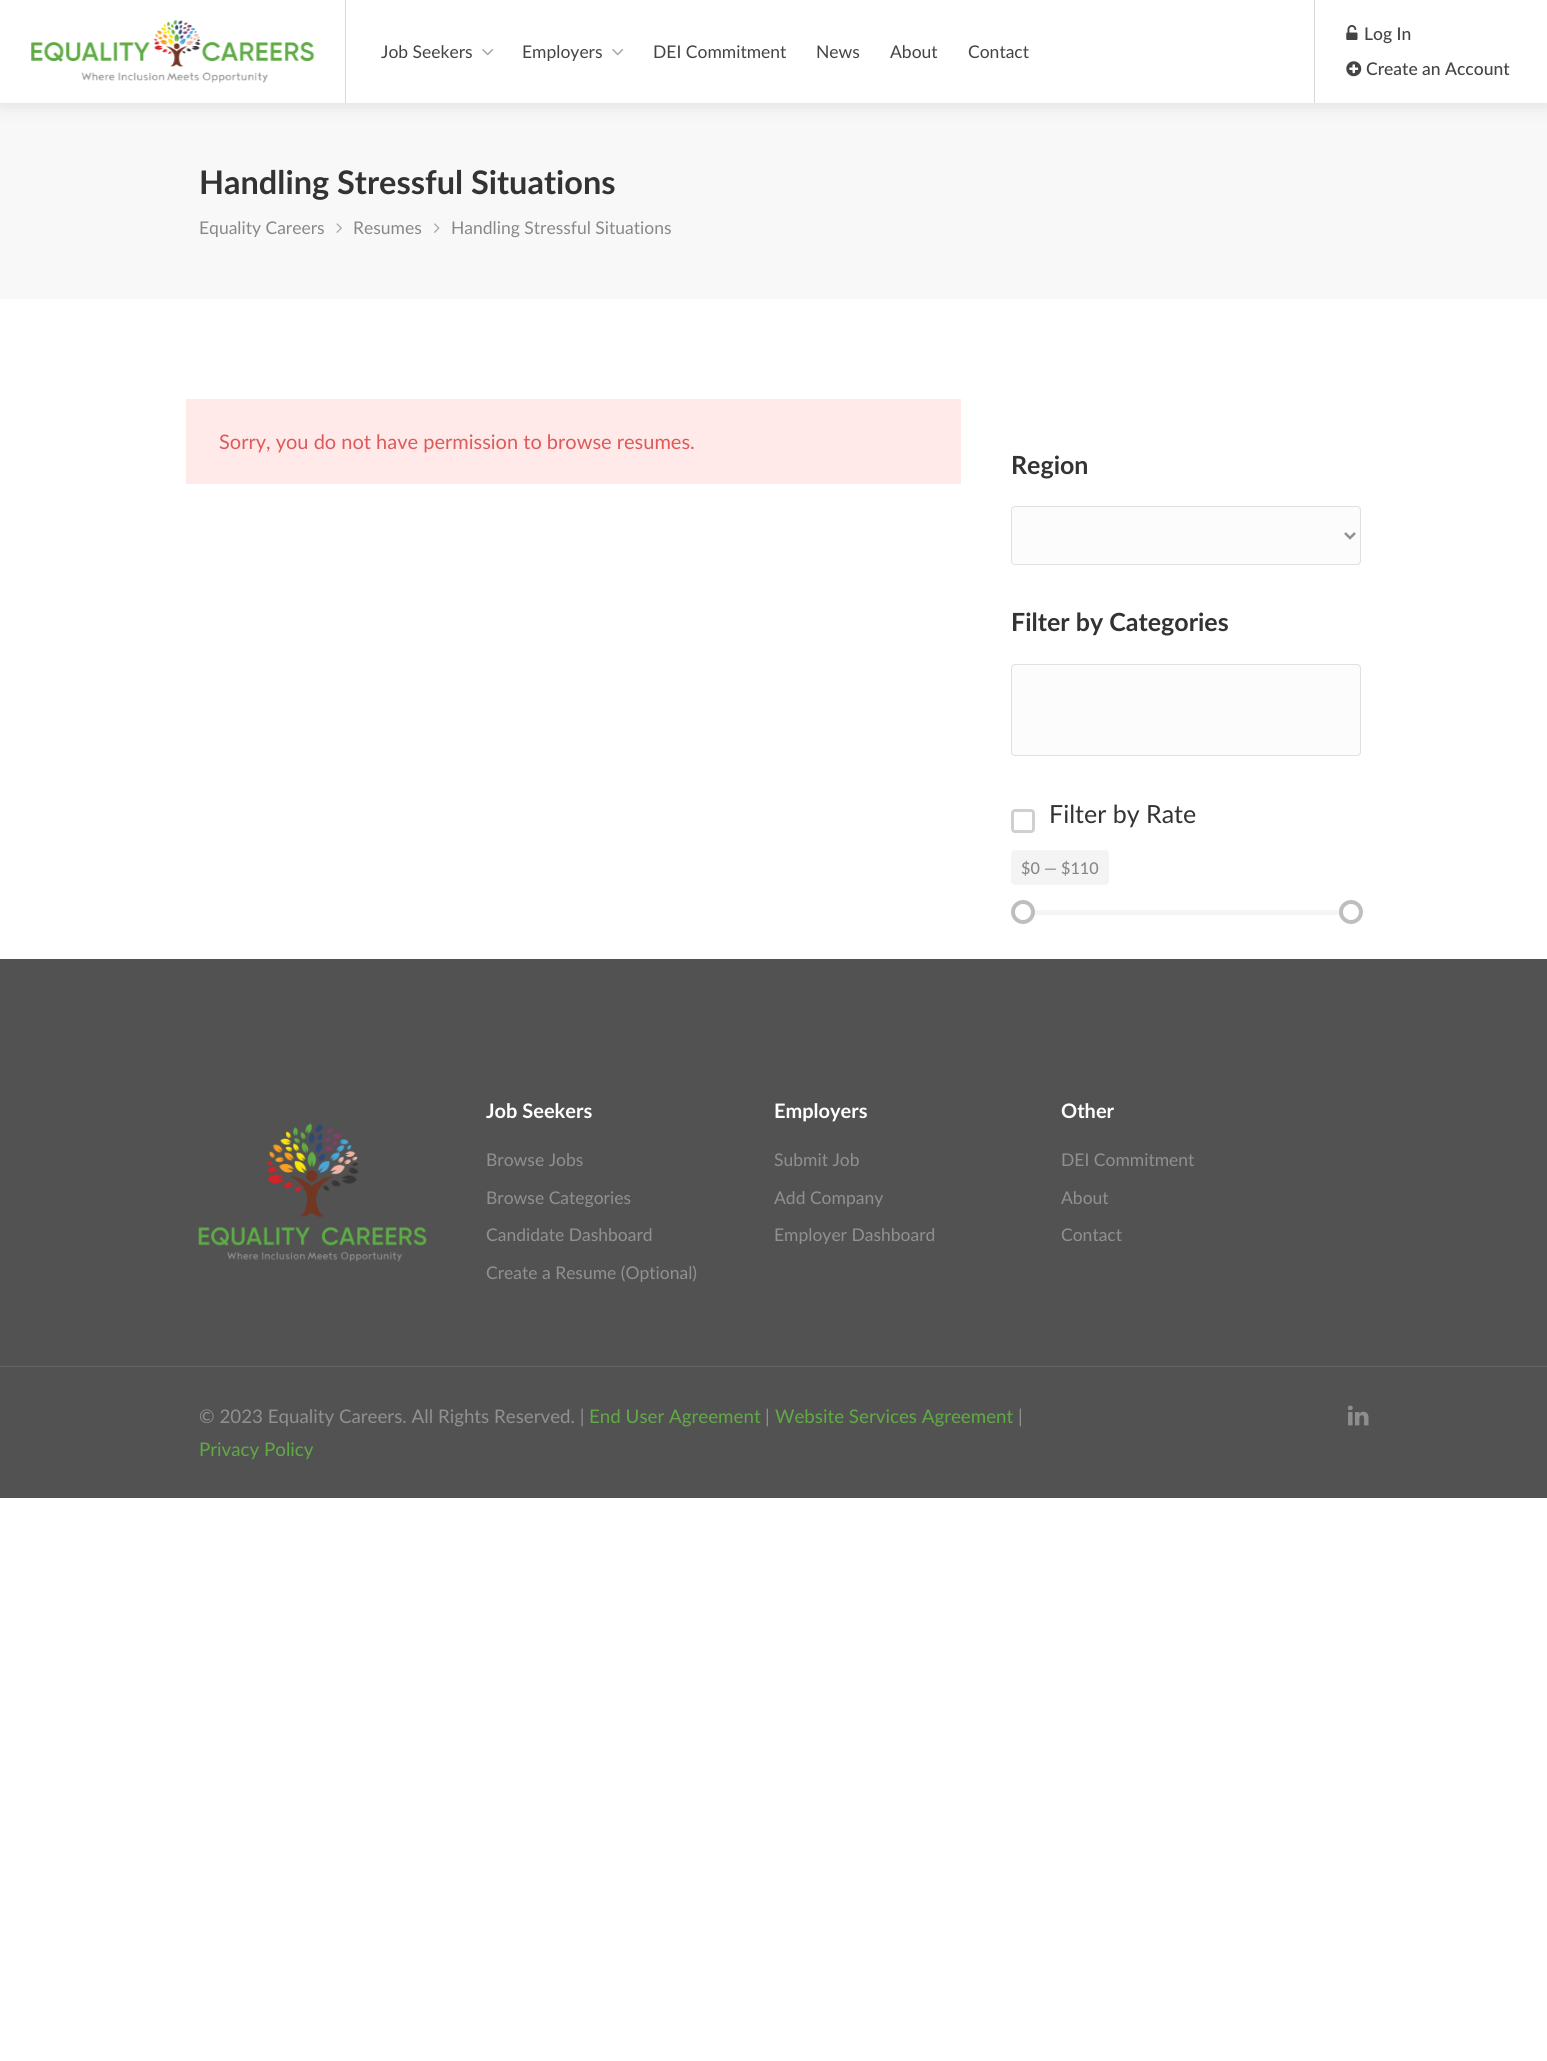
#include <cairo/cairo.h>
#include <math.h>
#include <stddef.h>

static cairo_t *cr;

static void use_color(int r, int g, int b) {
  cairo_set_source_rgb(cr, r / 255.0, g / 255.0, b / 255.0);
}

static void text(double x, double y, const char *s, const char *family, double size, int italic, int bold, int r, int g, int b) {
  cairo_select_font_face(cr, family, italic ? CAIRO_FONT_SLANT_ITALIC : CAIRO_FONT_SLANT_NORMAL,
    bold ? CAIRO_FONT_WEIGHT_BOLD : CAIRO_FONT_WEIGHT_NORMAL);
  cairo_set_font_size(cr, size);
  use_color(r, g, b);
  cairo_move_to(cr, x, y);
  cairo_show_text(cr, s);
}

static void box(double x, double y, double w, double h, int r, int g, int b) {
  use_color(r, g, b);
  cairo_rectangle(cr, x, y, w, h);
  cairo_fill(cr);
}

static void round_rect(double x, double y, double w, double h, double r) {
  cairo_new_sub_path(cr);
  cairo_arc(cr, x + w - r, y + h - r, r, 0, M_PI / 2);
  cairo_arc(cr, x + r, y + h - r, r, M_PI / 2, M_PI);
  cairo_arc(cr, x + r, y + r, r, M_PI, 1.5 * M_PI);
  cairo_arc(cr, x + w - r, y + r, r, 1.5 * M_PI, 2 * M_PI);
  cairo_close_path(cr);
}

static void shadow(double x, double y, double w, double h, double r, double blur, double alpha) {
  cairo_push_group_with_content(cr, CAIRO_CONTENT_ALPHA);
  cairo_set_operator(cr, CAIRO_OPERATOR_SOURCE);
  for (int i = 15; i >= -15 && fmin(w, h) + blur * i / 3 > 0; i -= 2) {
    double e = blur * i / 6;
    cairo_set_source_rgba(cr, 0, 0, 0, alpha * erfc((i - 1) / 8.5) / 2);
    round_rect(x - e, y - e, w + 2 * e, h + 2 * e, fmax(0, fmin(r + e + blur * .6, fmin(w, h) / 2 + e)));
    cairo_fill(cr);
  }
  cairo_pattern_t *soft = cairo_pop_group(cr);
  cairo_mask(cr, soft);
  cairo_pattern_destroy(soft);
}

static void picture(const char *path, double x, double y, double w, double h) {
  cairo_surface_t *image = cairo_image_surface_create_from_png(path);
  cairo_save(cr);
  cairo_set_source_surface(cr, image, x, y);
  cairo_rectangle(cr, x, y, w, h);
  cairo_fill(cr);
  cairo_restore(cr);
  cairo_surface_destroy(image);
}

static void draw(void) {
  use_color(255, 255, 255);
  cairo_paint(cr);
  box(0, 103, 1547, 196, 248, 248, 248);
  use_color(0, 0, 0);
  shadow(0, 0, 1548, 103, 0, 11, 0.12);
  box(0, 0, 1547, 103, 255, 255, 255);
  box(345, 0, 1, 103, 217, 217, 217);
  picture("img_01.png", 31, 20, 284, 63);
  picture("img_02.png", 482, 49, 12, 7);
  picture("img_02.png", 612, 49, 12, 7);
  box(1314, 0, 1, 103, 217, 217, 217);
  picture("img_03.png", 1346, 25, 12, 15);
  picture("img_04.png", 1346, 61, 16, 16);
  picture("img_05.png", 336, 223, 6, 10);
  picture("img_06.png", 434, 223, 6, 10);
  box(186, 399, 775, 85, 255, 233, 233);
  use_color(252, 252, 252);
  round_rect(1011.5, 506.5, 349, 58, 3.5);
  cairo_fill_preserve(cr);
  use_color(224, 224, 224);
  cairo_set_line_width(cr, 1);
  cairo_stroke(cr);
  cairo_new_path(cr);
  cairo_move_to(cr, 1345, 533);
  cairo_line_to(cr, 1350, 538);
  cairo_line_to(cr, 1355, 533);
  use_color(144, 144, 144);
  cairo_set_line_width(cr, 2.5);
  cairo_stroke(cr);
  use_color(252, 252, 252);
  round_rect(1011.5, 664.5, 349, 91, 3.5);
  cairo_fill_preserve(cr);
  use_color(224, 224, 224);
  cairo_set_line_width(cr, 1);
  cairo_stroke(cr);
  round_rect(1012.5, 810.5, 21, 21, 2.5);
  use_color(208, 208, 208);
  cairo_set_line_width(cr, 3);
  cairo_stroke(cr);
  use_color(244, 244, 244);
  round_rect(1011, 850, 98, 35, 4);
  cairo_fill(cr);
  box(1034, 910, 306, 5, 245, 245, 245);
  use_color(190, 190, 190);
  cairo_arc(cr, 1023, 912, 12, 0, 2 * M_PI);
  cairo_fill(cr);
  use_color(255, 255, 255);
  cairo_arc(cr, 1023, 912, 8, 0, 2 * M_PI);
  cairo_fill(cr);
  use_color(190, 190, 190);
  cairo_arc(cr, 1351, 912, 12, 0, 2 * M_PI);
  cairo_fill(cr);
  use_color(255, 255, 255);
  cairo_arc(cr, 1351, 912, 8, 0, 2 * M_PI);
  cairo_fill(cr);
  box(0, 959, 1547, 539, 82, 82, 82);
  picture("img_07.png", 198, 1123, 229, 139);
  box(0, 1366, 1547, 1, 100, 100, 100);
  picture("img_08.png", 1347, 1405, 22, 21);
  text(381, 58, "Job Seekers", "Lato", 17.5, 0, 0, 68, 68, 68);
  text(522, 58, "Employers", "Lato", 17.5, 0, 0, 68, 68, 68);
  text(653, 58, "DEI Commitment", "Lato", 17.5, 0, 0, 68, 68, 68);
  text(816, 58, "News", "Lato", 17.5, 0, 0, 68, 68, 68);
  text(890, 58, "About", "Lato", 17.5, 0, 0, 68, 68, 68);
  text(968, 58, "Contact", "Lato", 17.5, 0, 0, 68, 68, 68);
  text(1364, 40, "Log In", "Lato Medium", 17.5, 0, 0, 68, 68, 68);
  text(1366, 75, "Create an Account", "Lato Medium", 17.5, 0, 0, 68, 68, 68);
  text(199, 194, "Handling Stressful Situations", "Lato", 32.5, 0, 1, 51, 51, 51);
  text(199, 234, "Equality Careers", "Lato", 17.5, 0, 0, 136, 136, 136);
  text(353, 234, "Resumes", "Lato", 17.5, 0, 0, 136, 136, 136);
  text(451, 234, "Handling Stressful Situations", "Lato", 17.5, 0, 0, 136, 136, 136);
  text(219, 449, "Sorry, you do not have permission to browse resumes.", "Lato", 20, 0, 0, 222, 89, 89);
  text(1011, 474, "Region", "Lato", 25, 0, 1, 51, 51, 51);
  text(1011, 631, "Filter by Categories", "Lato", 25, 0, 1, 51, 51, 51);
  text(1049, 823, "Filter by Rate", "Lato", 25, 0, 0, 51, 51, 51);
  text(1021, 874, "$0 — $110", "Lato Medium", 16.25, 0, 0, 136, 136, 136);
  text(486, 1118, "Job Seekers", "Lato", 20, 0, 1, 255, 255, 255);
  text(486, 1166, "Browse Jobs", "Lato", 17.5, 0, 0, 144, 144, 144);
  text(486, 1204, "Browse Categories", "Lato", 17.5, 0, 0, 144, 144, 144);
  text(486, 1241, "Candidate Dashboard", "Lato", 17.5, 0, 0, 144, 144, 144);
  text(486, 1279, "Create a Resume (Optional)", "Lato", 17.5, 0, 0, 144, 144, 144);
  text(774, 1118, "Employers", "Lato", 20, 0, 1, 255, 255, 255);
  text(774, 1166, "Submit Job", "Lato", 17.5, 0, 0, 144, 144, 144);
  text(774, 1204, "Add Company", "Lato", 17.5, 0, 0, 144, 144, 144);
  text(774, 1241, "Employer Dashboard", "Lato", 17.5, 0, 0, 144, 144, 144);
  text(1061, 1118, "Other", "Lato", 20, 0, 1, 255, 255, 255);
  text(1061, 1166, "DEI Commitment", "Lato", 17.5, 0, 0, 144, 144, 144);
  text(1061, 1204, "About", "Lato", 17.5, 0, 0, 144, 144, 144);
  text(1061, 1241, "Contact", "Lato", 17.5, 0, 0, 144, 144, 144);
  text(199, 1423, "© 2023 Equality Careers. All Rights Reserved. |", "Lato", 18.75, 0, 0, 144, 144, 144);
  text(589, 1423, "End User Agreement", "Lato", 18.75, 0, 0, 96, 170, 69);
  text(765, 1423, "|", "Lato", 18.75, 0, 0, 144, 144, 144);
  text(775, 1423, "Website Services Agreement", "Lato", 18.75, 0, 0, 96, 170, 69);
  text(1018, 1423, "|", "Lato", 18.75, 0, 0, 144, 144, 144);
  text(199, 1456, "Privacy Policy", "Lato", 18.75, 0, 0, 96, 170, 69);
}

int main(void) {
  cairo_surface_t *surface = cairo_image_surface_create(CAIRO_FORMAT_RGB24, 1547, 2061);
  cr = cairo_create(surface);
  cairo_font_options_t *options = cairo_font_options_create();
  cairo_font_options_set_hint_metrics(options, CAIRO_HINT_METRICS_OFF);
  cairo_font_options_set_hint_style(options, CAIRO_HINT_STYLE_NONE);
  cairo_set_font_options(cr, options);
  cairo_set_miter_limit(cr, 4);
  draw();
  cairo_surface_write_to_png(surface, "out.png");
  cairo_font_options_destroy(options);
  cairo_destroy(cr);
  cairo_surface_destroy(surface);
  return 0;
}
